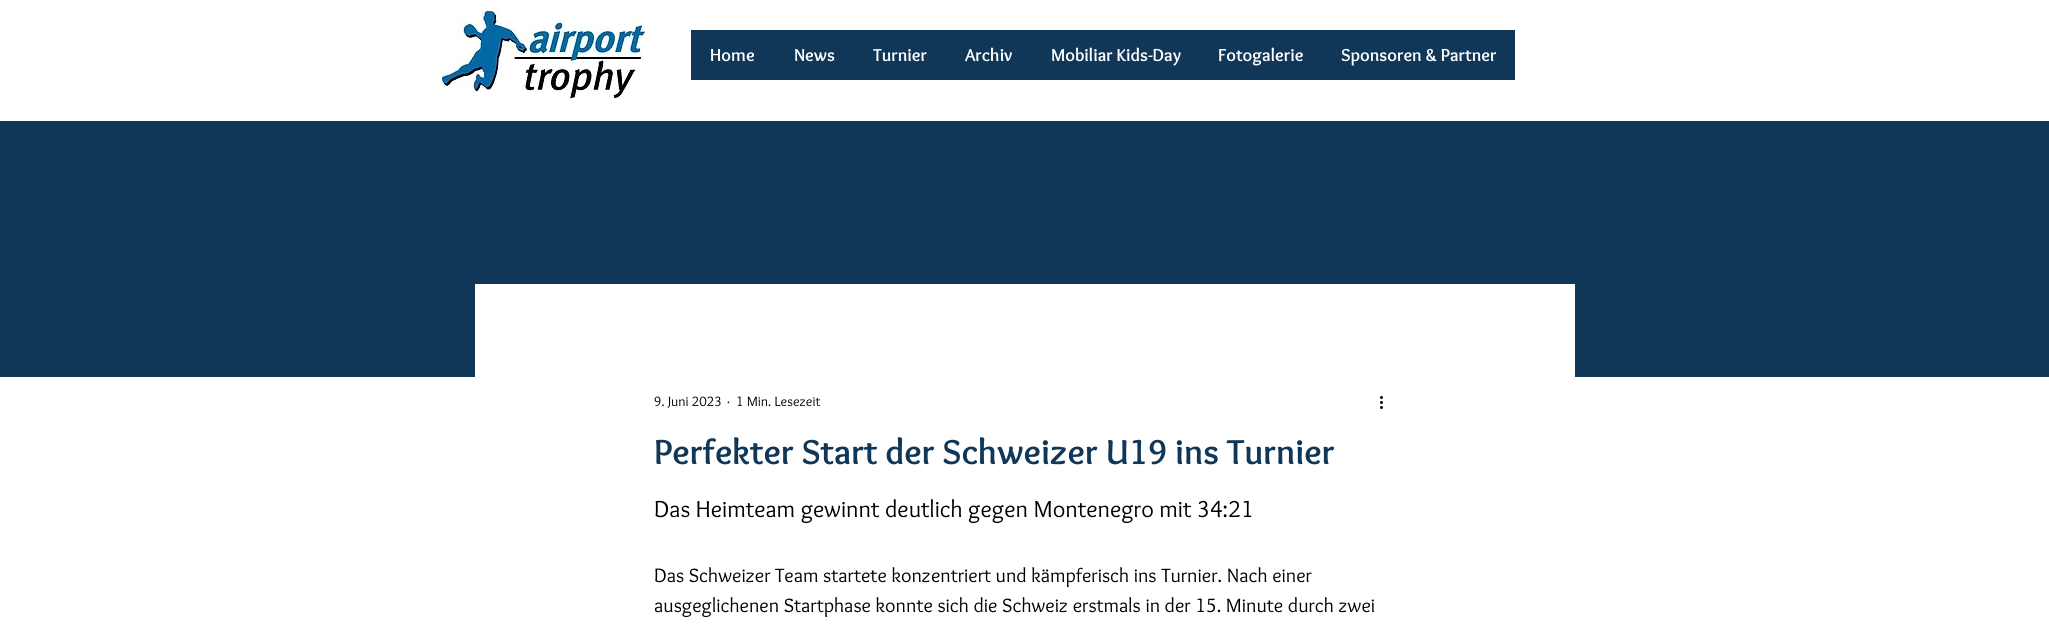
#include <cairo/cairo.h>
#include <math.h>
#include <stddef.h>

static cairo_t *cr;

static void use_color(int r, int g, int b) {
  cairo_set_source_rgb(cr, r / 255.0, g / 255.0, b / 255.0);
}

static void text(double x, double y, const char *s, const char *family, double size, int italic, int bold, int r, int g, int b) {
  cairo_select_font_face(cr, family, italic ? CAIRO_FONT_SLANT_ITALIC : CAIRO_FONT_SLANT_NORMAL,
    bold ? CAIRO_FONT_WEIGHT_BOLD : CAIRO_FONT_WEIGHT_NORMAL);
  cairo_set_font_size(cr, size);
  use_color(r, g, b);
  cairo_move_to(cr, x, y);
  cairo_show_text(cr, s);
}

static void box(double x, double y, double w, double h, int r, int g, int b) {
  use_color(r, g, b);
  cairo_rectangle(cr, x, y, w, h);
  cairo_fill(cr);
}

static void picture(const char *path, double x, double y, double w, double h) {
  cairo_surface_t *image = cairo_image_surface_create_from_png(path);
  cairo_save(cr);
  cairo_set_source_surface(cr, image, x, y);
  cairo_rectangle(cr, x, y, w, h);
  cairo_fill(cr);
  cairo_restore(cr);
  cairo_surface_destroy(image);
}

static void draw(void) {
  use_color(255, 255, 255);
  cairo_paint(cr);
  picture("img_01.png", 442, 11, 206, 88);
  box(691, 30, 824, 50, 16, 55, 87);
  box(0, 121, 2049, 256, 16, 55, 87);
  box(475, 284, 1100, 93, 255, 255, 255);
  picture("img_02.png", 1380, 396, 3, 13);
  text(710, 61, "Home", "Overlock", 18, 0, 1, 255, 255, 255);
  text(794, 61, "News", "Overlock", 18, 0, 1, 255, 255, 255);
  text(873, 61, "Turnier", "Overlock", 18, 0, 1, 255, 255, 255);
  text(965, 61, "Archiv", "Overlock", 18, 0, 1, 255, 255, 255);
  text(1051, 61, "Mobiliar Kids-Day", "Overlock", 18, 0, 1, 255, 255, 255);
  text(1218, 61, "Fotogalerie", "Overlock", 18, 0, 1, 255, 255, 255);
  text(1341, 61, "Sponsoren & Partner", "Overlock", 18, 0, 1, 255, 255, 255);
  text(654, 406, "9. Juni 2023", "Overlock", 14, 0, 0, 0, 0, 0);
  text(727, 406, "·", "Overlock", 14, 0, 0, 0, 0, 0);
  text(736, 406, "1 Min. Lesezeit", "Overlock", 14, 0, 0, 0, 0, 0);
  text(654, 464, "Perfekter Start der Schweizer U19 ins Turnier", "Overlock", 36, 0, 1, 16, 55, 87);
  text(654, 517, "Das Heimteam gewinnt deutlich gegen Montenegro mit 34:21", "Overlock", 24, 0, 0, 0, 0, 0);
  text(654, 582, "Das Schweizer Team startete konzentriert und kämpferisch ins Turnier. Nach einer", "Overlock", 20, 0, 0, 0, 0, 0);
  text(654, 612, "ausgeglichenen Startphase konnte sich die Schweiz erstmals in der 15. Minute durch zwei", "Overlock", 20, 0, 0, 0, 0, 0);
}

int main(void) {
  cairo_surface_t *surface = cairo_image_surface_create(CAIRO_FORMAT_RGB24, 2049, 631);
  cr = cairo_create(surface);
  cairo_font_options_t *options = cairo_font_options_create();
  cairo_font_options_set_hint_metrics(options, CAIRO_HINT_METRICS_OFF);
  cairo_font_options_set_hint_style(options, CAIRO_HINT_STYLE_NONE);
  cairo_set_font_options(cr, options);
  cairo_set_miter_limit(cr, 4);
  draw();
  cairo_surface_write_to_png(surface, "out.png");
  cairo_font_options_destroy(options);
  cairo_destroy(cr);
  cairo_surface_destroy(surface);
  return 0;
}
